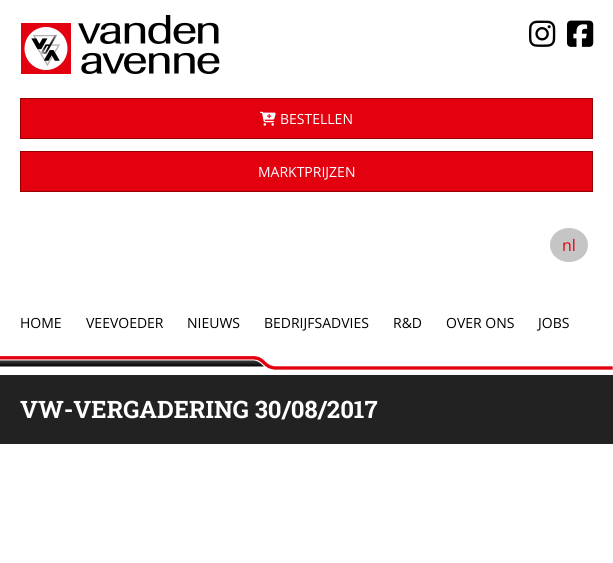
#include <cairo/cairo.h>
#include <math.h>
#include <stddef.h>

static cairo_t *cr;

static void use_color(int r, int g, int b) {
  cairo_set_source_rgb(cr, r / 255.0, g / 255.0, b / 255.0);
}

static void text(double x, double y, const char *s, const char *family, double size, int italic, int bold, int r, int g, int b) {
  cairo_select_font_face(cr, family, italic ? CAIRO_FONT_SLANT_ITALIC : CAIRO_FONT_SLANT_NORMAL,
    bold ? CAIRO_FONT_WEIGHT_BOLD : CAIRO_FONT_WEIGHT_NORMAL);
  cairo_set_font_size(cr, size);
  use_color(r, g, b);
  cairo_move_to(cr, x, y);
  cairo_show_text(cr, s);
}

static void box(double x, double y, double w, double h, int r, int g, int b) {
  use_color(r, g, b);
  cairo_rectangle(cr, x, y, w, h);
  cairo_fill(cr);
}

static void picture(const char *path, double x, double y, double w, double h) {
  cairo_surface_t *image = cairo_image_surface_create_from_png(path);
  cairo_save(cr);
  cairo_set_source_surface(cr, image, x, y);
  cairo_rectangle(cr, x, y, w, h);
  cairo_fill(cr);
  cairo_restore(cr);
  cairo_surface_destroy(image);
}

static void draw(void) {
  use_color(255, 255, 255);
  cairo_paint(cr);
  picture("img_01.png", 529, 20, 27, 27);
  picture("img_02.png", 567, 20, 27, 27);
  picture("img_03.png", 21, 15, 199, 59);
  use_color(227, 0, 15);
  cairo_rectangle(cr, 20.5, 98.5, 572, 40);
  cairo_fill_preserve(cr);
  use_color(151, 0, 0);
  cairo_set_line_width(cr, 1);
  cairo_stroke(cr);
  picture("img_04.png", 260, 111, 16, 15);
  use_color(227, 0, 15);
  cairo_rectangle(cr, 20.5, 151.5, 572, 40);
  cairo_fill_preserve(cr);
  use_color(151, 0, 0);
  cairo_stroke(cr);
  use_color(197, 197, 197);
  cairo_new_path(cr);
  cairo_move_to(cr, 569, 228);
  cairo_curve_to(cr, 579.5, 228, 588, 235.5, 588, 245);
  cairo_curve_to(cr, 588, 254.5, 579.5, 262, 569, 262);
  cairo_curve_to(cr, 558.5, 262, 550, 254.5, 550, 245);
  cairo_curve_to(cr, 550, 235.5, 558.5, 228, 569, 228);
  cairo_close_path(cr);
  cairo_fill(cr);
  picture("img_05.png", 0, 356, 613, 14);
  box(0, 375, 613, 69, 34, 34, 34);
  text(280, 124, "BESTELLEN", "Open Sans", 14, 0, 0, 255, 255, 255);
  text(258, 177, "MARKTPRIJZEN", "Open Sans", 14, 0, 0, 255, 255, 255);
  text(562, 251, "nl", "Open Sans", 16, 0, 0, 227, 0, 15);
  text(20, 328, "HOME", "Open Sans", 14, 0, 0, 0, 0, 0);
  text(86, 328, "VEEVOEDER", "Open Sans", 14, 0, 0, 0, 0, 0);
  text(187, 328, "NIEUWS", "Open Sans", 14, 0, 0, 0, 0, 0);
  text(264, 328, "BEDRIJFSADVIES", "Open Sans", 14, 0, 0, 0, 0, 0);
  text(393, 328, "R&D", "Open Sans", 14, 0, 0, 0, 0, 0);
  text(446, 328, "OVER ONS", "Open Sans", 14, 0, 0, 0, 0, 0);
  text(538, 328, "JOBS", "Open Sans", 14, 0, 0, 0, 0, 0);
  text(20, 418, "VW-VERGADERING 30/08/2017", "Roboto Slab", 24, 0, 1, 255, 255, 255);
}

int main(void) {
  cairo_surface_t *surface = cairo_image_surface_create(CAIRO_FORMAT_RGB24, 613, 563);
  cr = cairo_create(surface);
  cairo_font_options_t *options = cairo_font_options_create();
  cairo_font_options_set_hint_metrics(options, CAIRO_HINT_METRICS_OFF);
  cairo_font_options_set_hint_style(options, CAIRO_HINT_STYLE_NONE);
  cairo_set_font_options(cr, options);
  cairo_set_miter_limit(cr, 4);
  draw();
  cairo_surface_write_to_png(surface, "out.png");
  cairo_font_options_destroy(options);
  cairo_destroy(cr);
  cairo_surface_destroy(surface);
  return 0;
}
